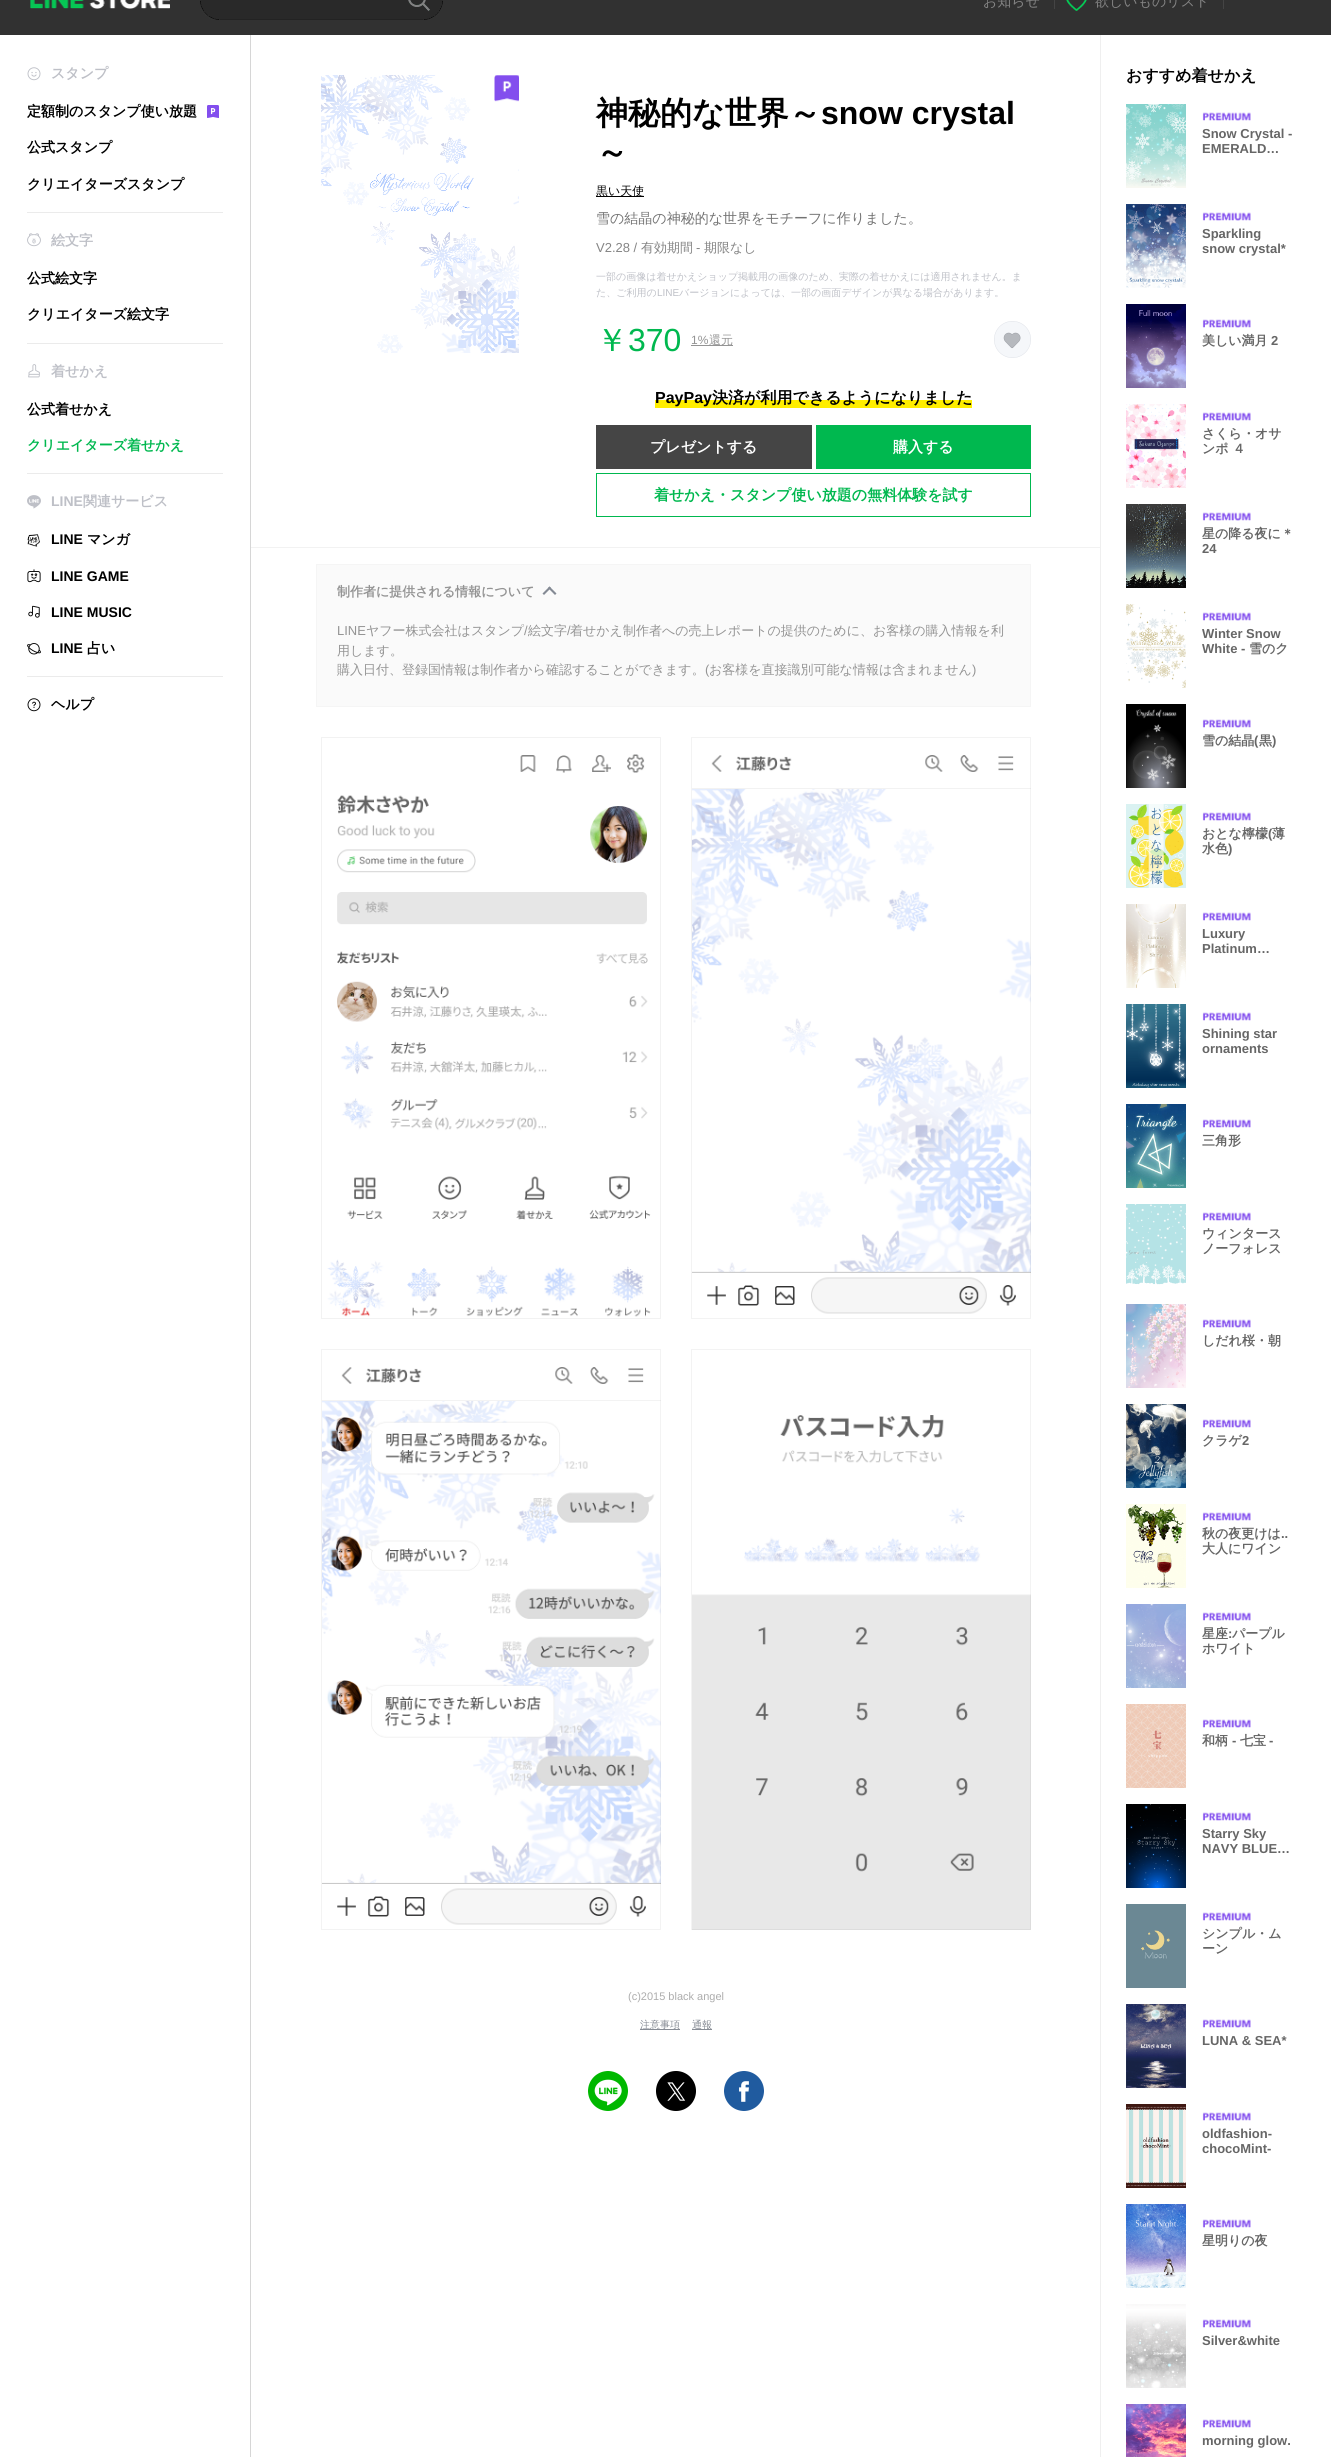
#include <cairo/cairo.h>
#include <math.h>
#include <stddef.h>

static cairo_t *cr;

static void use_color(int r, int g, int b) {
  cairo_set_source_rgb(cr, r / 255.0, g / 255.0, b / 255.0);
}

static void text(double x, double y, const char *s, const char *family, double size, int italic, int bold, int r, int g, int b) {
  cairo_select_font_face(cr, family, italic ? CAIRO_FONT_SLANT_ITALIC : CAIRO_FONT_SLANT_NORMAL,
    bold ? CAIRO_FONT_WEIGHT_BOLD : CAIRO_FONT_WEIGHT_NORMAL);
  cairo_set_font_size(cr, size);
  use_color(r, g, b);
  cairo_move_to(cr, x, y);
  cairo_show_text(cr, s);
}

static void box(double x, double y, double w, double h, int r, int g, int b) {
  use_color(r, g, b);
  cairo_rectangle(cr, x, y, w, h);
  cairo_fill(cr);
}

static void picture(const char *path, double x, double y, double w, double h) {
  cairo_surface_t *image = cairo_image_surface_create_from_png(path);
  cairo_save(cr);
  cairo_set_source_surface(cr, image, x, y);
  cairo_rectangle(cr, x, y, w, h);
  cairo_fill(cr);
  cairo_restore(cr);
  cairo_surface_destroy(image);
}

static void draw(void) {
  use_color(255, 255, 255);
  cairo_paint(cr);
  box(0, 0, 1331, 35, 49, 49, 49);
  picture("img_01.png", 30, 0, 140, 9);
  picture("img_02.png", 200, 0, 243, 20);
  picture("img_03.png", 408, 0, 22, 11);
  box(1054, 0, 1, 9, 68, 68, 68);
  picture("img_04.png", 1066, 0, 21, 11);
  box(1223, 0, 1, 9, 68, 68, 68);
  picture("img_05.png", 27, 67, 14, 14);
  picture("img_06.png", 207, 105, 12, 13);
  box(27, 212, 196, 1, 235, 235, 235);
  picture("img_07.png", 27, 233, 14, 14);
  box(27, 343, 196, 1, 235, 235, 235);
  picture("img_08.png", 28, 364, 12, 14);
  box(27, 473, 196, 1, 235, 235, 235);
  picture("img_09.png", 27, 495, 14, 14);
  picture("img_10.png", 27, 534, 13, 13);
  picture("img_11.png", 27, 569, 14, 14);
  picture("img_12.png", 28, 605, 12, 13);
  picture("img_13.png", 27, 643, 14, 12);
  box(27, 676, 196, 1, 235, 235, 235);
  picture("img_14.png", 27, 698, 14, 14);
  box(250, 35, 1, 2422, 214, 214, 214);
  picture("img_15.png", 321, 75, 198, 278);
  picture("img_16.png", 494, 75, 25, 27);
  box(596, 196, 48, 1, 0, 0, 0);
  box(691, 345, 42, 1, 148, 148, 148);
  picture("img_17.png", 994, 321, 37, 37);
  box(655, 400, 317, 8, 255, 238, 0);
  box(596, 425, 216, 44, 69, 69, 69);
  box(816, 425, 215, 44, 0, 184, 79);
  cairo_rectangle(cr, 596.5, 473.5, 434, 43);
  cairo_set_line_width(cr, 1);
  cairo_stroke(cr);
  box(251, 547, 850, 1, 242, 242, 242);
  box(1100, 35, 1, 2422, 239, 239, 239);
  use_color(250, 250, 250);
  cairo_rectangle(cr, 316.5, 564.5, 714, 142);
  cairo_fill_preserve(cr);
  use_color(245, 245, 245);
  cairo_stroke(cr);
  use_color(132, 138, 148);
  cairo_new_path(cr);
  cairo_move_to(cr, 542.5, 593.5);
  cairo_line_to(cr, 549.5, 586.5);
  cairo_line_to(cr, 551, 588);
  cairo_line_to(cr, 544, 595);
  cairo_close_path(cr);
  cairo_fill(cr);
  cairo_new_path(cr);
  cairo_move_to(cr, 548, 588);
  cairo_line_to(cr, 549.5, 586.5);
  cairo_line_to(cr, 556.5, 593.5);
  cairo_line_to(cr, 555, 595);
  cairo_close_path(cr);
  cairo_fill(cr);
  picture("img_18.png", 327, 754, 324, 563);
  cairo_rectangle(cr, 321.5, 737.5, 339, 581);
  use_color(242, 242, 242);
  cairo_stroke(cr);
  picture("img_19.png", 692, 755, 339, 559);
  cairo_rectangle(cr, 691.5, 737.5, 339, 581);
  cairo_set_source_rgba(cr, 0, 0, 0, 0.05);
  cairo_stroke(cr);
  picture("img_20.png", 322, 1367, 339, 558);
  cairo_rectangle(cr, 321.5, 1349.5, 339, 580);
  cairo_stroke(cr);
  picture("img_21.png", 692, 1415, 339, 515);
  cairo_rectangle(cr, 691.5, 1349.5, 339, 580);
  cairo_stroke(cr);
  box(640, 2029, 40, 1, 135, 140, 149);
  box(692, 2029, 20, 1, 135, 140, 149);
  picture("img_22.png", 588, 2071, 40, 40);
  picture("img_23.png", 656, 2071, 40, 40);
  picture("img_24.png", 724, 2071, 40, 40);
  picture("img_25.png", 1126, 104, 60, 84);
  picture("img_26.png", 1202, 112, 49, 9);
  picture("img_27.png", 1126, 204, 60, 84);
  picture("img_26.png", 1202, 212, 49, 9);
  picture("img_28.png", 1126, 304, 60, 84);
  picture("img_26.png", 1202, 319, 49, 9);
  picture("img_29.png", 1126, 404, 60, 84);
  picture("img_26.png", 1202, 412, 49, 9);
  picture("img_30.png", 1126, 504, 60, 84);
  picture("img_26.png", 1202, 512, 49, 9);
  picture("img_31.png", 1126, 604, 60, 84);
  picture("img_26.png", 1202, 612, 49, 9);
  picture("img_32.png", 1126, 704, 60, 84);
  picture("img_26.png", 1202, 719, 49, 9);
  picture("img_33.png", 1126, 804, 60, 84);
  picture("img_26.png", 1202, 812, 49, 9);
  picture("img_34.png", 1126, 904, 60, 84);
  picture("img_26.png", 1202, 912, 49, 9);
  picture("img_35.png", 1126, 1004, 60, 84);
  picture("img_26.png", 1202, 1012, 49, 9);
  picture("img_36.png", 1126, 1104, 60, 84);
  picture("img_26.png", 1202, 1119, 49, 9);
  picture("img_37.png", 1126, 1204, 60, 81);
  picture("img_26.png", 1202, 1212, 49, 9);
  picture("img_38.png", 1126, 1304, 60, 84);
  picture("img_26.png", 1202, 1319, 49, 9);
  picture("img_39.png", 1126, 1404, 60, 84);
  picture("img_26.png", 1202, 1419, 49, 9);
  picture("img_40.png", 1126, 1504, 60, 84);
  picture("img_26.png", 1202, 1512, 49, 9);
  picture("img_41.png", 1126, 1604, 60, 84);
  picture("img_26.png", 1202, 1612, 49, 9);
  picture("img_42.png", 1126, 1704, 60, 84);
  picture("img_26.png", 1202, 1719, 49, 9);
  picture("img_43.png", 1126, 1804, 60, 84);
  picture("img_26.png", 1202, 1812, 49, 9);
  picture("img_44.png", 1126, 1904, 60, 84);
  picture("img_26.png", 1202, 1912, 49, 9);
  picture("img_45.png", 1126, 2004, 60, 84);
  picture("img_26.png", 1202, 2019, 49, 9);
  picture("img_46.png", 1126, 2104, 60, 84);
  picture("img_26.png", 1202, 2112, 49, 9);
  picture("img_47.png", 1126, 2204, 60, 84);
  picture("img_26.png", 1202, 2219, 49, 9);
  picture("img_48.png", 1126, 2304, 60, 84);
  picture("img_26.png", 1202, 2319, 49, 9);
  picture("img_49.png", 1126, 2404, 60, 53);
  picture("img_26.png", 1202, 2419, 49, 9);
  text(983, 6, "お知らせ", "WenQuanYi Zen Hei Medium", 14, 0, 0, 132, 132, 132);
  text(1095, 6, "欲しいものリスト", "WenQuanYi Zen Hei Medium", 14, 0, 0, 132, 132, 132);
  text(51, 78, "スタンプ", "WenQuanYi Zen Hei", 14, 0, 1, 190, 192, 199);
  text(27, 116, "定額制のスタンプ使い放題", "WenQuanYi Zen Hei", 14, 0, 1, 0, 0, 0);
  text(27, 152, "公式スタンプ", "WenQuanYi Zen Hei", 14, 0, 1, 0, 0, 0);
  text(27, 189, "クリエイターズスタンプ", "WenQuanYi Zen Hei", 14, 0, 1, 0, 0, 0);
  text(51, 245, "絵文字", "WenQuanYi Zen Hei", 14, 0, 1, 190, 192, 199);
  text(27, 283, "公式絵文字", "WenQuanYi Zen Hei", 14, 0, 1, 0, 0, 0);
  text(27, 319, "クリエイターズ絵文字", "WenQuanYi Zen Hei", 14, 0, 1, 0, 0, 0);
  text(51, 376, "着せかえ", "WenQuanYi Zen Hei", 14, 0, 1, 190, 192, 199);
  text(27, 414, "公式着せかえ", "WenQuanYi Zen Hei", 14, 0, 1, 0, 0, 0);
  text(27, 450, "クリエイターズ着せかえ", "WenQuanYi Zen Hei", 14, 0, 1, 0, 184, 79);
  text(51, 506, "LINE", "Liberation Sans", 14, 0, 1, 190, 192, 199);
  text(83, 506, "関連サービス", "WenQuanYi Zen Hei", 14, 0, 1, 190, 192, 199);
  text(51, 544, "LINE", "Liberation Sans", 14, 0, 1, 0, 0, 0);
  text(87, 544, "マンガ", "WenQuanYi Zen Hei", 14, 0, 1, 0, 0, 0);
  text(51, 581, "LINE GAME", "Liberation Sans", 14, 0, 1, 0, 0, 0);
  text(51, 617, "LINE MUSIC", "Liberation Sans", 14, 0, 1, 0, 0, 0);
  text(51, 653, "LINE", "Liberation Sans", 14, 0, 1, 0, 0, 0);
  text(87, 653, "占い", "WenQuanYi Zen Hei", 14, 0, 1, 0, 0, 0);
  text(51, 709, "ヘルプ", "WenQuanYi Zen Hei", 14, 0, 1, 0, 0, 0);
  text(596, 124, "神秘的な世界～", "WenQuanYi Zen Hei", 32, 0, 1, 0, 0, 0);
  text(821, 124, "snow crystal", "Liberation Sans", 32, 0, 1, 0, 0, 0);
  text(596, 163, "～", "WenQuanYi Zen Hei", 32, 0, 1, 0, 0, 0);
  text(596, 195, "黒い天使", "WenQuanYi Zen Hei Medium", 12, 0, 0, 0, 0, 0);
  text(596, 223, "雪の結晶の神秘的な世界をモチーフに作りました。", "WenQuanYi Zen Hei Medium", 14, 0, 0, 115, 115, 115);
  text(596, 252, "V2.28 /", "Liberation Sans", 13, 0, 0, 132, 132, 132);
  text(641, 252, "有効期間", "WenQuanYi Zen Hei Medium", 13, 0, 0, 132, 132, 132);
  text(696, 252, "-", "Liberation Sans", 13, 0, 0, 132, 132, 132);
  text(704, 252, "期限なし", "WenQuanYi Zen Hei Medium", 13, 0, 0, 132, 132, 132);
  text(596, 280, "一部の画像は着せかえショップ掲載用の画像のため、実際の着せかえには適用されません。ま", "WenQuanYi Zen Hei Medium", 10, 0, 0, 190, 192, 199);
  text(596, 296, "た、ご利用の", "WenQuanYi Zen Hei Medium", 10, 0, 0, 190, 192, 199);
  text(657, 296, "LINE", "Liberation Sans", 10, 0, 0, 190, 192, 199);
  text(679, 296, "バージョンによっては、一部の画面デザインが異なる場合があります。", "WenQuanYi Zen Hei Medium", 10, 0, 0, 190, 192, 199);
  text(596, 351, "￥", "WenQuanYi Zen Hei Medium", 32, 0, 0, 0, 184, 79);
  text(628, 351, "370", "Liberation Sans", 32, 0, 0, 0, 184, 79);
  text(691, 344, "1%", "Liberation Sans", 12, 0, 0, 148, 148, 148);
  text(709, 344, "還元", "WenQuanYi Zen Hei Medium", 12, 0, 0, 148, 148, 148);
  text(655, 403, "PayPay", "Liberation Sans", 16, 0, 1, 0, 0, 0);
  text(712, 403, "決済が利用できるようになりました", "WenQuanYi Zen Hei", 16, 0, 1, 0, 0, 0);
  text(650, 452, "プレゼントする", "WenQuanYi Zen Hei", 15, 0, 1, 255, 255, 255);
  text(893, 452, "購入する", "WenQuanYi Zen Hei", 15, 0, 1, 255, 255, 255);
  text(654, 500, "着せかえ・スタンプ使い放題の無料体験を試す", "WenQuanYi Zen Hei", 15, 0, 1, 0, 184, 79);
  text(337, 596, "制作者に提供される情報について", "WenQuanYi Zen Hei", 13, 0, 1, 148, 148, 148);
  text(337, 635, "LINE", "Liberation Sans", 13, 0, 0, 148, 148, 148);
  text(366, 635, "ヤフー株式会社はスタンプ", "WenQuanYi Zen Hei Medium", 13, 0, 0, 148, 148, 148);
  text(524, 635, "/", "Liberation Sans", 13, 0, 0, 148, 148, 148);
  text(528, 635, "絵文字", "WenQuanYi Zen Hei Medium", 13, 0, 0, 148, 148, 148);
  text(567, 635, "/", "Liberation Sans", 13, 0, 0, 148, 148, 148);
  text(570, 635, "着せかえ制作者への売上レポートの提供のために、お客様の購入情報を利", "WenQuanYi Zen Hei Medium", 13, 0, 0, 148, 148, 148);
  text(337, 655, "用します。", "WenQuanYi Zen Hei Medium", 13, 0, 0, 148, 148, 148);
  text(337, 674, "購入日付、登録国情報は制作者から確認することができます。", "WenQuanYi Zen Hei Medium", 13, 0, 0, 148, 148, 148);
  text(705, 674, "(", "Liberation Sans", 13, 0, 0, 148, 148, 148);
  text(709, 674, "お客様を直接識別可能な情報は含まれません", "WenQuanYi Zen Hei Medium", 13, 0, 0, 148, 148, 148);
  text(972, 674, ")", "Liberation Sans", 13, 0, 0, 148, 148, 148);
  text(628, 2000, "(c)2015 black angel", "Liberation Sans", 11, 0, 0, 173, 173, 173);
  text(640, 2028, "注意事項", "WenQuanYi Zen Hei Medium", 10, 0, 0, 134, 139, 148);
  text(692, 2028, "通報", "WenQuanYi Zen Hei Medium", 10, 0, 0, 134, 139, 148);
  text(1126, 81, "おすすめ着せかえ", "WenQuanYi Zen Hei", 16, 0, 1, 0, 0, 0);
  text(1202, 138, "Snow Crystal -", "Liberation Sans", 13, 0, 1, 102, 102, 102);
  text(1202, 153, "EMERALD…", "Liberation Sans", 13, 0, 1, 102, 102, 102);
  text(1202, 238, "Sparkling", "Liberation Sans", 13, 0, 1, 102, 102, 102);
  text(1202, 253, "snow crystal*", "Liberation Sans", 13, 0, 1, 102, 102, 102);
  text(1202, 345, "美しい満月", "WenQuanYi Zen Hei", 13, 0, 1, 102, 102, 102);
  text(1271, 345, "2", "Liberation Sans", 13, 0, 1, 102, 102, 102);
  text(1202, 438, "さくら・オサ", "WenQuanYi Zen Hei", 13, 0, 1, 102, 102, 102);
  text(1202, 453, "ンポ ４", "WenQuanYi Zen Hei", 13, 0, 1, 102, 102, 102);
  text(1202, 538, "星の降る夜に＊", "WenQuanYi Zen Hei", 13, 0, 1, 102, 102, 102);
  text(1202, 553, "24", "Liberation Sans", 13, 0, 1, 102, 102, 102);
  text(1202, 638, "Winter Snow", "Liberation Sans", 13, 0, 1, 102, 102, 102);
  text(1202, 653, "White -", "Liberation Sans", 13, 0, 1, 102, 102, 102);
  text(1249, 653, "雪のク", "WenQuanYi Zen Hei", 13, 0, 1, 102, 102, 102);
  text(1202, 745, "雪の結晶", "WenQuanYi Zen Hei", 13, 0, 1, 102, 102, 102);
  text(1254, 745, "(", "Liberation Sans", 13, 0, 1, 102, 102, 102);
  text(1259, 745, "黒", "WenQuanYi Zen Hei", 13, 0, 1, 102, 102, 102);
  text(1272, 745, ")", "Liberation Sans", 13, 0, 1, 102, 102, 102);
  text(1202, 838, "おとな檸檬", "WenQuanYi Zen Hei", 13, 0, 1, 102, 102, 102);
  text(1268, 838, "(", "Liberation Sans", 13, 0, 1, 102, 102, 102);
  text(1272, 838, "薄", "WenQuanYi Zen Hei", 13, 0, 1, 102, 102, 102);
  text(1202, 853, "水色", "WenQuanYi Zen Hei", 13, 0, 1, 102, 102, 102);
  text(1228, 853, ")", "Liberation Sans", 13, 0, 1, 102, 102, 102);
  text(1202, 938, "Luxury", "Liberation Sans", 13, 0, 1, 102, 102, 102);
  text(1202, 953, "Platinum…", "Liberation Sans", 13, 0, 1, 102, 102, 102);
  text(1202, 1038, "Shining star", "Liberation Sans", 13, 0, 1, 102, 102, 102);
  text(1202, 1053, "ornaments", "Liberation Sans", 13, 0, 1, 102, 102, 102);
  text(1202, 1145, "三角形", "WenQuanYi Zen Hei", 13, 0, 1, 102, 102, 102);
  text(1202, 1238, "ウィンタース", "WenQuanYi Zen Hei", 13, 0, 1, 102, 102, 102);
  text(1202, 1253, "ノーフォレス", "WenQuanYi Zen Hei", 13, 0, 1, 102, 102, 102);
  text(1202, 1345, "しだれ桜・朝", "WenQuanYi Zen Hei", 13, 0, 1, 102, 102, 102);
  text(1202, 1445, "クラゲ", "WenQuanYi Zen Hei", 13, 0, 1, 102, 102, 102);
  text(1242, 1445, "2", "Liberation Sans", 13, 0, 1, 102, 102, 102);
  text(1202, 1538, "秋の夜更けは", "WenQuanYi Zen Hei", 13, 0, 1, 102, 102, 102);
  text(1281, 1538, "..", "Liberation Sans", 13, 0, 1, 102, 102, 102);
  text(1202, 1553, "大人にワイン", "WenQuanYi Zen Hei", 13, 0, 1, 102, 102, 102);
  text(1202, 1638, "星座", "WenQuanYi Zen Hei", 13, 0, 1, 102, 102, 102);
  text(1228, 1638, ":", "Liberation Sans", 13, 0, 1, 102, 102, 102);
  text(1232, 1638, "パープル", "WenQuanYi Zen Hei", 13, 0, 1, 102, 102, 102);
  text(1202, 1653, "ホワイト", "WenQuanYi Zen Hei", 13, 0, 1, 102, 102, 102);
  text(1202, 1745, "和柄", "WenQuanYi Zen Hei", 13, 0, 1, 102, 102, 102);
  text(1232, 1745, "-", "Liberation Sans", 13, 0, 1, 102, 102, 102);
  text(1240, 1745, "七宝", "WenQuanYi Zen Hei", 13, 0, 1, 102, 102, 102);
  text(1269, 1745, "-", "Liberation Sans", 13, 0, 1, 102, 102, 102);
  text(1202, 1838, "Starry Sky", "Liberation Sans", 13, 0, 1, 102, 102, 102);
  text(1202, 1853, "NAVY BLUE…", "Liberation Sans", 13, 0, 1, 102, 102, 102);
  text(1202, 1938, "シンプル・ム", "WenQuanYi Zen Hei", 13, 0, 1, 102, 102, 102);
  text(1202, 1953, "ーン", "WenQuanYi Zen Hei", 13, 0, 1, 102, 102, 102);
  text(1202, 2045, "LUNA & SEA*", "Liberation Sans", 13, 0, 1, 102, 102, 102);
  text(1202, 2138, "oldfashion-", "Liberation Sans", 13, 0, 1, 102, 102, 102);
  text(1202, 2153, "chocoMint-", "Liberation Sans", 13, 0, 1, 102, 102, 102);
  text(1202, 2245, "星明りの夜", "WenQuanYi Zen Hei", 13, 0, 1, 102, 102, 102);
  text(1202, 2345, "Silver&white", "Liberation Sans", 13, 0, 1, 102, 102, 102);
  text(1202, 2445, "morning glow.", "Liberation Sans", 13, 0, 1, 102, 102, 102);
}

int main(void) {
  cairo_surface_t *surface = cairo_image_surface_create(CAIRO_FORMAT_RGB24, 1331, 2457);
  cr = cairo_create(surface);
  cairo_font_options_t *options = cairo_font_options_create();
  cairo_font_options_set_hint_metrics(options, CAIRO_HINT_METRICS_OFF);
  cairo_font_options_set_hint_style(options, CAIRO_HINT_STYLE_NONE);
  cairo_set_font_options(cr, options);
  cairo_set_miter_limit(cr, 4);
  draw();
  cairo_surface_write_to_png(surface, "out.png");
  cairo_font_options_destroy(options);
  cairo_destroy(cr);
  cairo_surface_destroy(surface);
  return 0;
}
